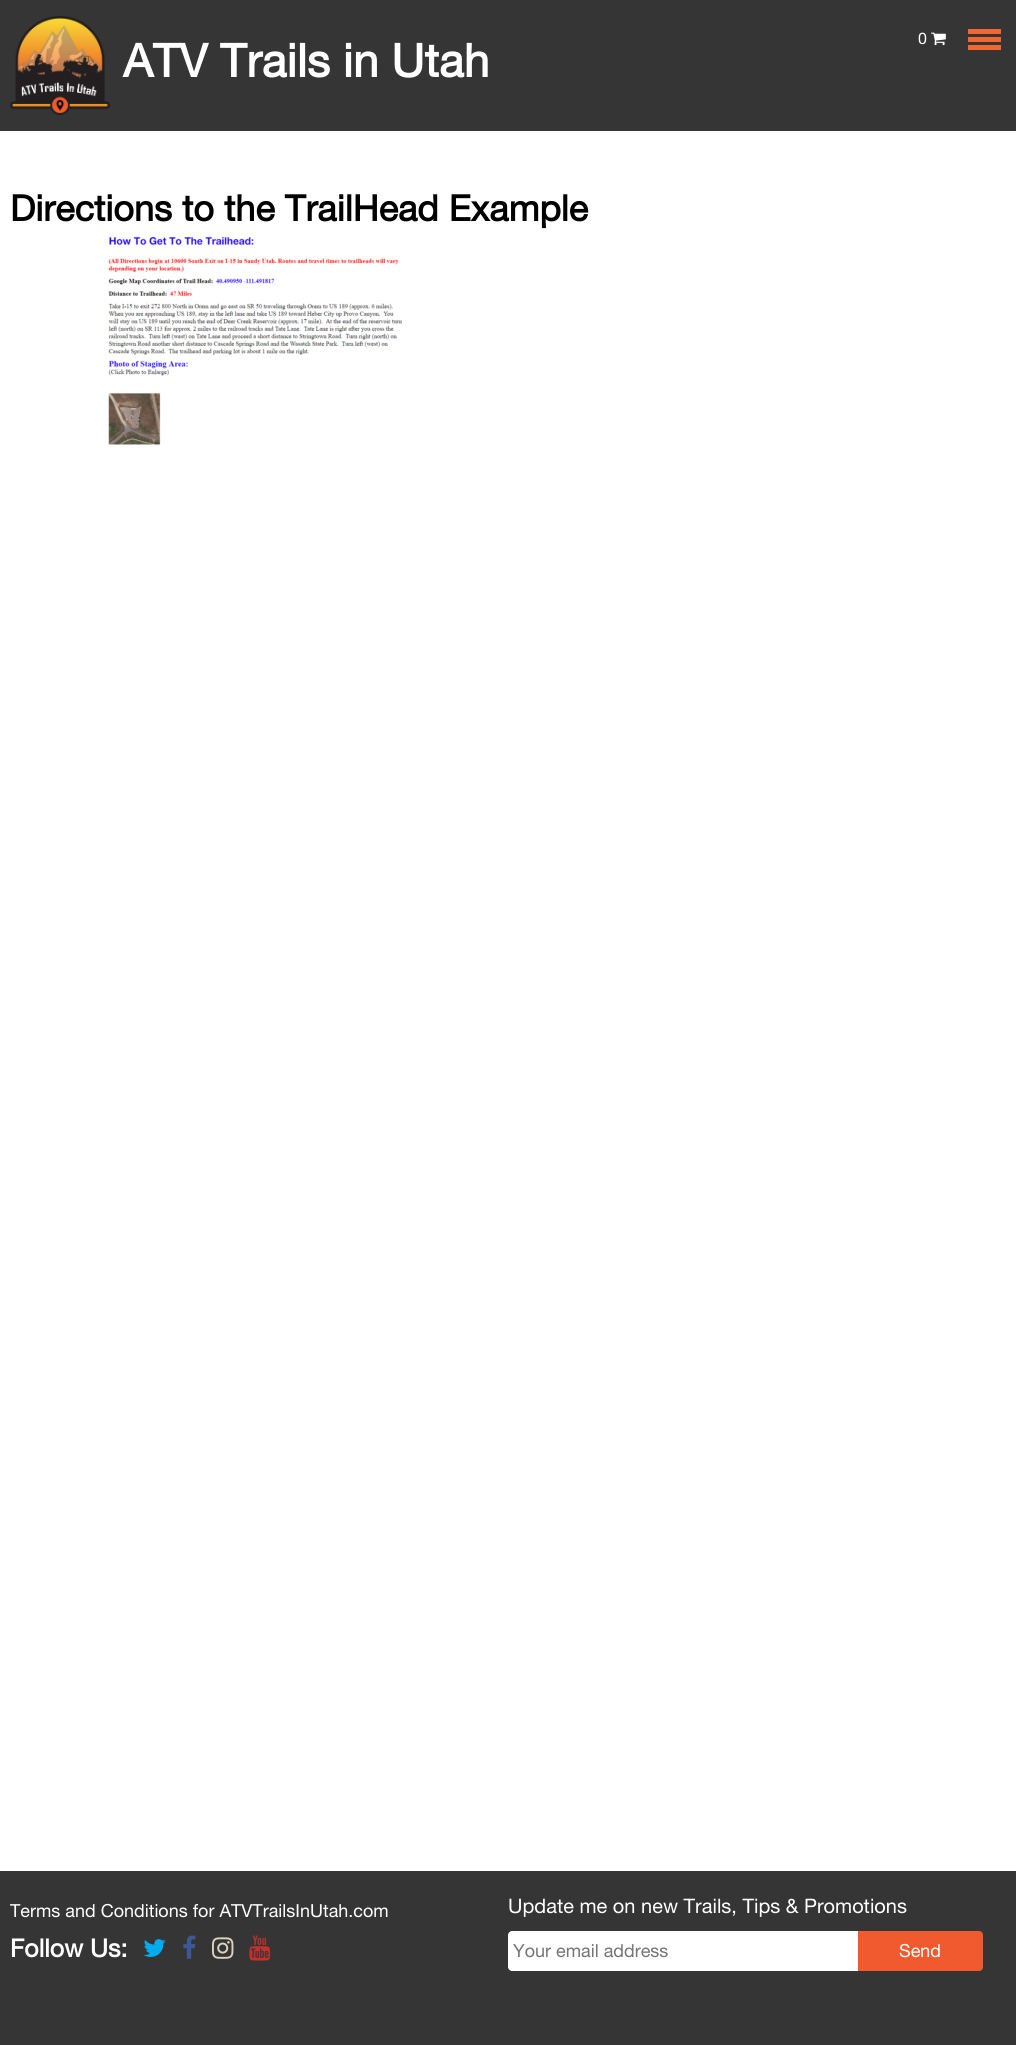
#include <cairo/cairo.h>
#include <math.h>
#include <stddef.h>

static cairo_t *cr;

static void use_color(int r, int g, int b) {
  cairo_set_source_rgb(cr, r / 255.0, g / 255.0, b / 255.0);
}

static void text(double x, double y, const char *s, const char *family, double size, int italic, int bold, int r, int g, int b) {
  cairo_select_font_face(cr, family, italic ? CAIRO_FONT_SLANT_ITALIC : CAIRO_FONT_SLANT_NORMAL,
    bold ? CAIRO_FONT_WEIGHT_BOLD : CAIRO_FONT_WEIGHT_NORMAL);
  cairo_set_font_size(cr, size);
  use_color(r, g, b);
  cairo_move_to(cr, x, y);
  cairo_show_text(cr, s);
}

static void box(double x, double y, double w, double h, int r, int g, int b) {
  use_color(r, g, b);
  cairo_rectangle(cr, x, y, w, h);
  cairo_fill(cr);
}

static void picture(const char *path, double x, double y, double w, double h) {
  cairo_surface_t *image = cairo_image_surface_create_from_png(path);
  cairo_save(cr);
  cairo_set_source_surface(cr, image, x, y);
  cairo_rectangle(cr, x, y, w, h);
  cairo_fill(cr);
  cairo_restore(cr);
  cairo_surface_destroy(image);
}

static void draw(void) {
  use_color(255, 255, 255);
  cairo_paint(cr);
  box(0, 0, 1016, 131, 53, 53, 53);
  picture("img_01.png", 931, 32, 15, 14);
  box(968, 29, 33, 5, 242, 102, 49);
  box(968, 37, 33, 5, 242, 102, 49);
  box(968, 45, 33, 5, 242, 102, 49);
  picture("img_02.png", 10, 16, 100, 99);
  picture("img_03.png", 108, 236, 294, 209);
  box(0, 1871, 1016, 174, 53, 53, 53);
  use_color(255, 255, 255);
  cairo_new_path(cr);
  cairo_move_to(cr, 512, 1931);
  cairo_line_to(cr, 858, 1931);
  cairo_line_to(cr, 858, 1971);
  cairo_line_to(cr, 512, 1971);
  cairo_curve_to(cr, 510, 1971, 508, 1969, 508, 1967);
  cairo_line_to(cr, 508, 1935);
  cairo_curve_to(cr, 508, 1933, 510, 1931, 512, 1931);
  cairo_close_path(cr);
  cairo_fill(cr);
  use_color(241, 89, 46);
  cairo_new_path(cr);
  cairo_move_to(cr, 858.5, 1931.5);
  cairo_line_to(cr, 979, 1931.5);
  cairo_curve_to(cr, 981, 1931.5, 982.5, 1933, 982.5, 1935);
  cairo_line_to(cr, 982.5, 1967);
  cairo_curve_to(cr, 982.5, 1969, 981, 1970.5, 979, 1970.5);
  cairo_line_to(cr, 858.5, 1970.5);
  cairo_close_path(cr);
  cairo_fill_preserve(cr);
  cairo_set_line_width(cr, 1);
  cairo_stroke(cr);
  picture("img_04.png", 143, 1939, 23, 18);
  picture("img_05.png", 183, 1935, 13, 24);
  picture("img_06.png", 212, 1937, 22, 22);
  picture("img_07.png", 249, 1935, 22, 26);
  text(918, 44, "0", "Helvetica Neue", 16, 0, 0, 255, 255, 255);
  text(123, 77, "ATV Trails in Utah", "Helvetica Neue", 46, 0, 1, 255, 255, 255);
  text(10, 221, "Directions to the TrailHead Example", "Helvetica Neue", 36, 0, 1, 0, 0, 0);
  text(10, 1917, "Terms and Conditions for ATVTrailsInUtah.com", "Helvetica Neue", 18, 0, 0, 255, 255, 255);
  text(508, 1913, "Update me on new Trails, Tips & Promotions", "Helvetica Neue", 20, 0, 0, 255, 255, 255);
  text(513, 1957, "Your email address", "Helvetica Neue", 18, 0, 0, 117, 117, 117);
  text(899, 1957, "Send", "Helvetica Neue", 18, 0, 0, 255, 255, 255);
  text(10, 1957, "Follow Us:", "Helvetica Neue", 25, 0, 1, 255, 255, 255);
}

int main(void) {
  cairo_surface_t *surface = cairo_image_surface_create(CAIRO_FORMAT_RGB24, 1016, 2045);
  cr = cairo_create(surface);
  cairo_font_options_t *options = cairo_font_options_create();
  cairo_font_options_set_hint_metrics(options, CAIRO_HINT_METRICS_OFF);
  cairo_font_options_set_hint_style(options, CAIRO_HINT_STYLE_NONE);
  cairo_set_font_options(cr, options);
  cairo_set_miter_limit(cr, 4);
  draw();
  cairo_surface_write_to_png(surface, "out.png");
  cairo_font_options_destroy(options);
  cairo_destroy(cr);
  cairo_surface_destroy(surface);
  return 0;
}
